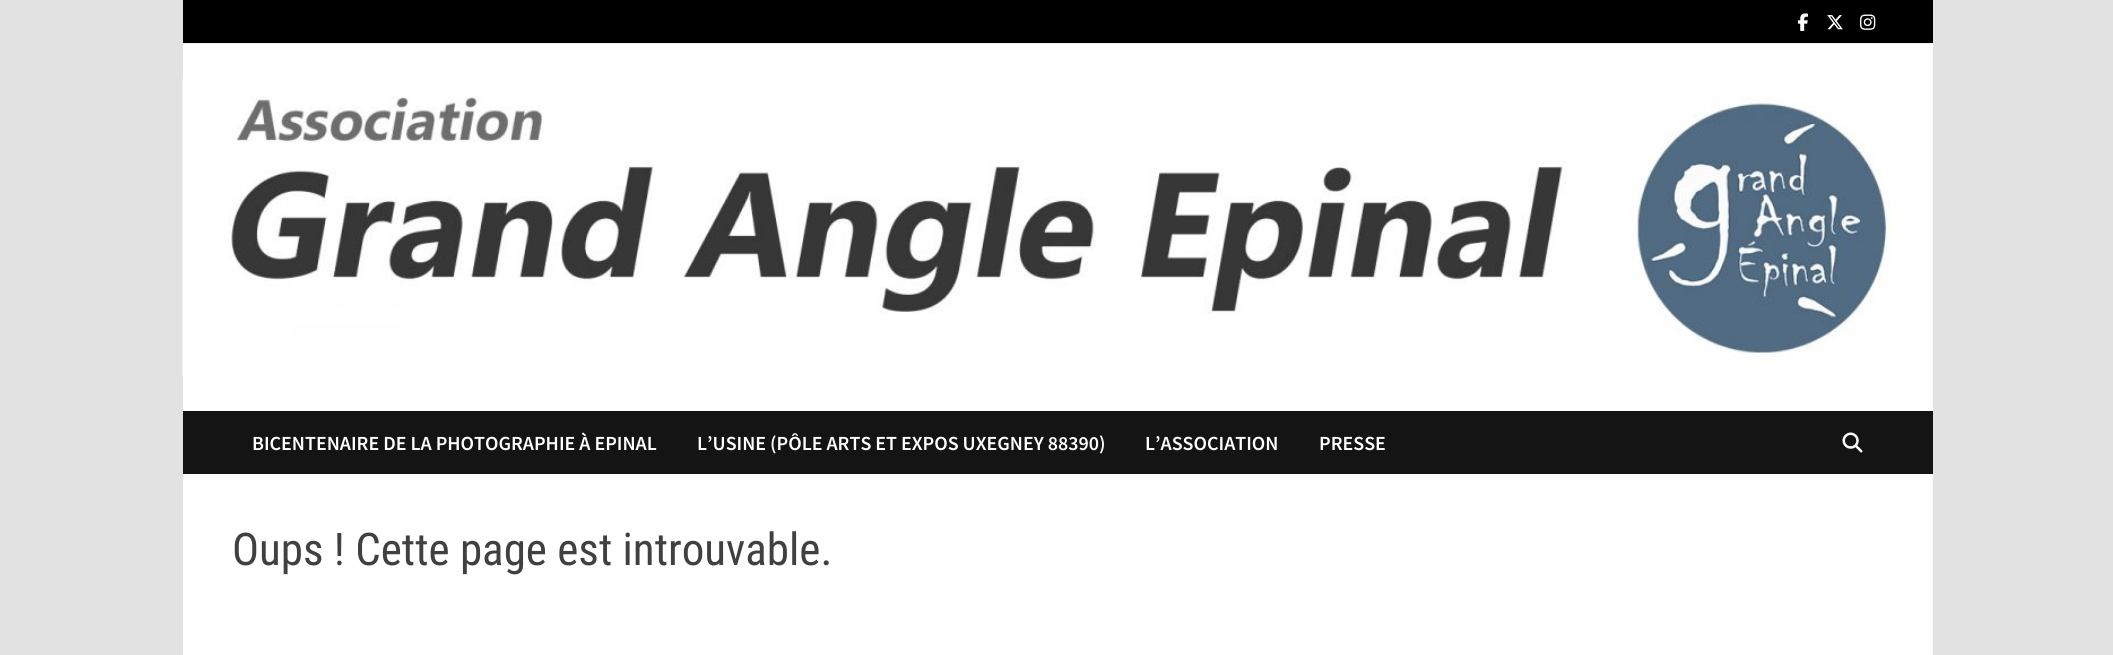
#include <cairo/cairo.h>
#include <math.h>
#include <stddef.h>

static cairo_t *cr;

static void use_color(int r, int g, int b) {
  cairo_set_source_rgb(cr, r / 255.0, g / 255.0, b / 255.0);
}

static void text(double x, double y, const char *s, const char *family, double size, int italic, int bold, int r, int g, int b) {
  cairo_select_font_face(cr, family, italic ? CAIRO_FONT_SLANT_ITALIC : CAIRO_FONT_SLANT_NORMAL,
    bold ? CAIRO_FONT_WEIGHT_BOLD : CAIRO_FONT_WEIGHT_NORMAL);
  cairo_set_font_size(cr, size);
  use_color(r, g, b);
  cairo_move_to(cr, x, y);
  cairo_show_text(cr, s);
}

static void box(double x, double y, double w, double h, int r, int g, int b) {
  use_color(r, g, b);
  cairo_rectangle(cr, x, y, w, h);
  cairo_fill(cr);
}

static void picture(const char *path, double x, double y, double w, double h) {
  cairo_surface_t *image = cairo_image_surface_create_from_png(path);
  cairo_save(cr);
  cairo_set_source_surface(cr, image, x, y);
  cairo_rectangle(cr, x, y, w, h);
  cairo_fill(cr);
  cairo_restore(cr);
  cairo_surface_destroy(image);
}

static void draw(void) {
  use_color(226, 226, 226);
  cairo_paint(cr);
  box(183, 44, 1750, 611, 255, 255, 255);
  box(183, 0, 1750, 43, 0, 0, 0);
  box(183, 43, 1750, 1, 238, 238, 238);
  picture("img_01.png", 1797, 13, 11, 18);
  picture("img_02.png", 1827, 15, 16, 15);
  picture("img_03.png", 1860, 14, 16, 16);
  picture("img_04.png", 182, 79, 1712, 297);
  box(183, 411, 1750, 63, 20, 20, 20);
  picture("img_05.png", 1842, 432, 21, 21);
  text(252, 450, "BICENTENAIRE DE LA PHOTOGRAPHIE À EPINAL", "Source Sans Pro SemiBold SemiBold", 20, 0, 0, 255, 255, 255);
  text(697, 450, "L’USINE (PÔLE ARTS ET EXPOS UXEGNEY 88390)", "Source Sans Pro SemiBold SemiBold", 20, 0, 0, 255, 255, 255);
  text(1145, 450, "L’ASSOCIATION", "Source Sans Pro SemiBold SemiBold", 20, 0, 0, 255, 255, 255);
  text(1319, 450, "PRESSE", "Source Sans Pro SemiBold SemiBold", 20, 0, 0, 255, 255, 255);
  text(232, 565, "Oups ! Cette page est introuvable.", "Roboto Condensed", 45, 0, 0, 64, 64, 64);
}

int main(void) {
  cairo_surface_t *surface = cairo_image_surface_create(CAIRO_FORMAT_RGB24, 2113, 655);
  cr = cairo_create(surface);
  cairo_font_options_t *options = cairo_font_options_create();
  cairo_font_options_set_hint_metrics(options, CAIRO_HINT_METRICS_OFF);
  cairo_font_options_set_hint_style(options, CAIRO_HINT_STYLE_NONE);
  cairo_set_font_options(cr, options);
  cairo_set_miter_limit(cr, 4);
  draw();
  cairo_surface_write_to_png(surface, "out.png");
  cairo_font_options_destroy(options);
  cairo_destroy(cr);
  cairo_surface_destroy(surface);
  return 0;
}
